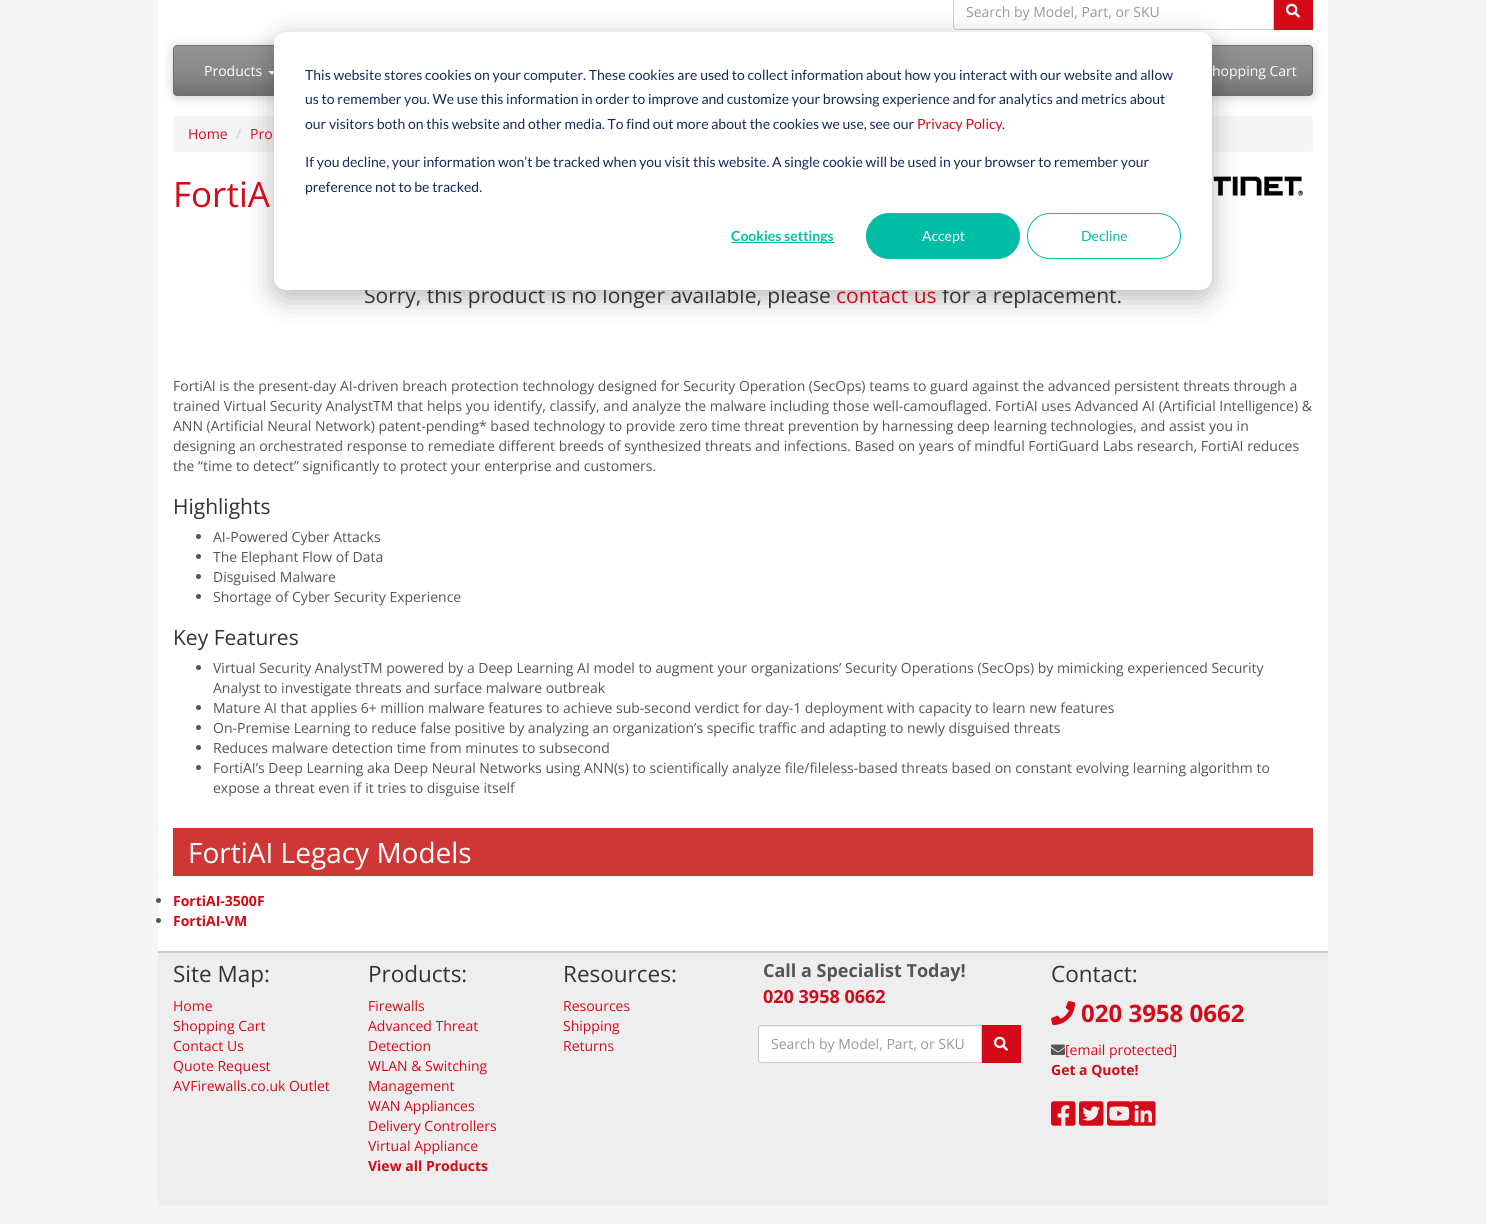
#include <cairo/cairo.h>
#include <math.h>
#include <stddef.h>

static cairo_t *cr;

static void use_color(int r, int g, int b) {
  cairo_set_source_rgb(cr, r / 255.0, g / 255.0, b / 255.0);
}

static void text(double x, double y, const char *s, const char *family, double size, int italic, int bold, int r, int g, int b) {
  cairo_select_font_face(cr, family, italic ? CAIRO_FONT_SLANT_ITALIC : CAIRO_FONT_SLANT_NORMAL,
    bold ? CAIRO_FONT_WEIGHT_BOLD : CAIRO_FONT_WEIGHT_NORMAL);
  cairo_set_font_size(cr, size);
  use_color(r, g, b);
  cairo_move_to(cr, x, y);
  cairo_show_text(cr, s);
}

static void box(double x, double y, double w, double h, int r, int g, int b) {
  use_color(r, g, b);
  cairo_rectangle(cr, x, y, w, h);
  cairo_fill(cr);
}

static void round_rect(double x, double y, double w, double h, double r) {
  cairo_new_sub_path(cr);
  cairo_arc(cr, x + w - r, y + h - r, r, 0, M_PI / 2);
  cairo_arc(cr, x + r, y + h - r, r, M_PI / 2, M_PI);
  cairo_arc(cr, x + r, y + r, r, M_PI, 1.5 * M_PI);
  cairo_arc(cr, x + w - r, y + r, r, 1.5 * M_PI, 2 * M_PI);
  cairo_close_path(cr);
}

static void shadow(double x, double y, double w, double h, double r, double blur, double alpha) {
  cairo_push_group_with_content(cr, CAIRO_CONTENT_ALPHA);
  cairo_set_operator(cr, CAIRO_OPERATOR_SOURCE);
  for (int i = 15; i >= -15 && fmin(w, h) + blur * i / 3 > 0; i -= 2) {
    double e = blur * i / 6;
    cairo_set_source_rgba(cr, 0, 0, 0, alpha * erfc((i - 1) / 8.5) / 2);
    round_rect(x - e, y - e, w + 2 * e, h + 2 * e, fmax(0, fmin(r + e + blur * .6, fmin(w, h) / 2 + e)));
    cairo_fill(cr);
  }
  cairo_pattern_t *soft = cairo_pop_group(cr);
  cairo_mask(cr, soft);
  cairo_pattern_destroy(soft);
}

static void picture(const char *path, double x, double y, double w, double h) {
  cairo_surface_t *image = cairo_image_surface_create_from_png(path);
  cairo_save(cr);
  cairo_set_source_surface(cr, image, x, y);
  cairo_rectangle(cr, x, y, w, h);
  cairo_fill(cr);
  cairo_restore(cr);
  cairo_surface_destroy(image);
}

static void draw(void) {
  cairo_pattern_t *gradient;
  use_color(245, 245, 245);
  cairo_paint(cr);
  box(158, 0, 1170, 951, 255, 255, 255);
  cairo_new_path(cr);
  cairo_move_to(cr, 957, -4.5);
  cairo_line_to(cr, 1273.5, -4.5);
  cairo_line_to(cr, 1273.5, 29.5);
  cairo_line_to(cr, 957, 29.5);
  cairo_curve_to(cr, 955, 29.5, 953.5, 28, 953.5, 26);
  cairo_line_to(cr, 953.5, -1);
  cairo_curve_to(cr, 953.5, -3, 955, -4.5, 957, -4.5);
  cairo_close_path(cr);
  use_color(204, 204, 204);
  cairo_set_line_width(cr, 1);
  cairo_stroke(cr);
  box(1274, 0, 39, 30, 213, 10, 24);
  picture("img_01.png", 1286, 3, 14, 15);
  use_color(0, 0, 0);
  shadow(173, 46, 1140, 51, 4, 5, 0.2);
  cairo_save(cr);
  round_rect(173, 45, 1140, 51, 4);
  cairo_clip(cr);
  gradient = cairo_pattern_create_linear(743, 46, 743, 96);
  cairo_pattern_add_color_stop_rgba(gradient, 0, 0.58, 0.58, 0.58, 1);
  cairo_pattern_add_color_stop_rgba(gradient, 0.6, 0.529, 0.529, 0.529, 1);
  cairo_pattern_add_color_stop_rgba(gradient, 1, 0.443, 0.443, 0.443, 1);
  cairo_set_source(cr, gradient);
  cairo_pattern_destroy(gradient);
  cairo_rectangle(cr, 174, 46, 1138, 50);
  cairo_fill(cr);
  cairo_restore(cr);
  use_color(113, 113, 113);
  cairo_set_fill_rule(cr, CAIRO_FILL_RULE_EVEN_ODD);
  cairo_new_path(cr);
  cairo_move_to(cr, 177, 45);
  cairo_line_to(cr, 1309, 45);
  cairo_curve_to(cr, 1311, 45, 1313, 47, 1313, 49);
  cairo_line_to(cr, 1313, 92);
  cairo_curve_to(cr, 1313, 94, 1311, 96, 1309, 96);
  cairo_line_to(cr, 177, 96);
  cairo_curve_to(cr, 175, 96, 173, 94, 173, 92);
  cairo_line_to(cr, 173, 49);
  cairo_curve_to(cr, 173, 47, 175, 45, 177, 45);
  cairo_close_path(cr);
  cairo_move_to(cr, 177, 46);
  cairo_line_to(cr, 1309, 46);
  cairo_curve_to(cr, 1311, 46, 1312, 47, 1312, 49);
  cairo_line_to(cr, 1312, 92);
  cairo_curve_to(cr, 1312, 94, 1311, 96, 1309, 96);
  cairo_line_to(cr, 177, 96);
  cairo_curve_to(cr, 175, 96, 174, 94, 174, 92);
  cairo_line_to(cr, 174, 49);
  cairo_curve_to(cr, 174, 47, 175, 46, 177, 46);
  cairo_close_path(cr);
  cairo_fill(cr);
  use_color(255, 255, 255);
  cairo_set_fill_rule(cr, CAIRO_FILL_RULE_WINDING);
  cairo_new_path(cr);
  cairo_move_to(cr, 268, 71);
  cairo_line_to(cr, 276, 71);
  cairo_line_to(cr, 272, 75);
  cairo_close_path(cr);
  cairo_fill(cr);
  use_color(245, 245, 245);
  round_rect(173, 116, 1140, 36, 4);
  cairo_fill(cr);
  picture("img_02.png", 1212, 176, 91, 20);
  use_color(85, 85, 85);
  cairo_arc(cr, 198.5, 536.5, 2.5, 0, 2 * M_PI);
  cairo_fill(cr);
  cairo_arc(cr, 198.5, 556.5, 2.5, 0, 2 * M_PI);
  cairo_fill(cr);
  cairo_arc(cr, 198.5, 576.5, 2.5, 0, 2 * M_PI);
  cairo_fill(cr);
  cairo_arc(cr, 198.5, 596.5, 2.5, 0, 2 * M_PI);
  cairo_fill(cr);
  cairo_arc(cr, 198.5, 667.5, 2.5, 0, 2 * M_PI);
  cairo_fill(cr);
  cairo_arc(cr, 198.5, 707.5, 2.5, 0, 2 * M_PI);
  cairo_fill(cr);
  cairo_arc(cr, 198.5, 727.5, 2.5, 0, 2 * M_PI);
  cairo_fill(cr);
  cairo_arc(cr, 198.5, 747.5, 2.5, 0, 2 * M_PI);
  cairo_fill(cr);
  cairo_arc(cr, 198.5, 767.5, 2.5, 0, 2 * M_PI);
  cairo_fill(cr);
  box(173, 828, 1140, 48, 207, 55, 55);
  use_color(85, 85, 85);
  cairo_arc(cr, 158.5, 900.5, 2.5, 0, 2 * M_PI);
  cairo_fill(cr);
  cairo_arc(cr, 158.5, 920.5, 2.5, 0, 2 * M_PI);
  cairo_fill(cr);
  use_color(0, 0, 0);
  shadow(274, 40, 938, 258, 12, 14, 0.28);
  box(158, 953, 1170, 253, 238, 238, 238);
  box(158, 951, 1170, 2, 204, 204, 204);
  use_color(255, 255, 255);
  cairo_new_path(cr);
  cairo_move_to(cr, 762, 1025);
  cairo_line_to(cr, 982, 1025);
  cairo_line_to(cr, 982, 1063);
  cairo_line_to(cr, 762, 1063);
  cairo_curve_to(cr, 760, 1063, 758, 1061, 758, 1059);
  cairo_line_to(cr, 758, 1029);
  cairo_curve_to(cr, 758, 1027, 760, 1025, 762, 1025);
  cairo_close_path(cr);
  cairo_fill(cr);
  use_color(236, 236, 236);
  cairo_new_path(cr);
  cairo_move_to(cr, 762, 1027);
  cairo_line_to(cr, 981, 1027);
  cairo_line_to(cr, 981, 1026);
  cairo_line_to(cr, 762, 1026);
  cairo_curve_to(cr, 760, 1026, 759, 1028, 759, 1030);
  cairo_curve_to(cr, 759, 1028, 760, 1027, 762, 1027);
  cairo_close_path(cr);
  cairo_fill(cr);
  cairo_new_path(cr);
  cairo_move_to(cr, 762, 1025.5);
  cairo_line_to(cr, 981.5, 1025.5);
  cairo_line_to(cr, 981.5, 1062.5);
  cairo_line_to(cr, 762, 1062.5);
  cairo_curve_to(cr, 760, 1062.5, 758.5, 1061, 758.5, 1059);
  cairo_line_to(cr, 758.5, 1029);
  cairo_curve_to(cr, 758.5, 1027, 760, 1025.5, 762, 1025.5);
  cairo_close_path(cr);
  use_color(204, 204, 204);
  cairo_stroke(cr);
  box(982, 1025, 39, 38, 213, 10, 24);
  picture("img_01.png", 994, 1036, 14, 15);
  picture("img_03.png", 1051, 1001, 25, 24);
  picture("img_04.png", 1051, 1044, 14, 11);
  picture("img_05.png", 1051, 1101, 25, 25);
  picture("img_06.png", 1079, 1101, 25, 25);
  picture("img_07.png", 1107, 1101, 25, 25);
  picture("img_08.png", 1131, 1101, 25, 25);
  text(966, 17, "Search by Model, Part, or SKU", "Open Sans", 14, 0, 0, 153, 153, 153);
  text(204, 76, "Products", "Open Sans", 14, 0, 0, 255, 255, 255);
  text(1212, 76, "hopping Cart", "Open Sans", 14, 0, 0, 255, 255, 255);
  text(188, 139, "Home", "Open Sans", 14, 0, 0, 213, 10, 24);
  text(236, 139, "/", "Open Sans", 14, 0, 0, 204, 204, 204);
  text(250, 139, "Pro", "Open Sans", 14, 0, 0, 213, 10, 24);
  text(173, 207, "FortiA", "Open Sans", 35, 0, 0, 213, 10, 24);
  text(364, 303, "Sorry, this product is no longer available, please", "Open Sans", 21, 0, 0, 51, 51, 51);
  text(836, 303, "contact us", "Open Sans", 21, 0, 0, 213, 10, 24);
  text(942, 303, "for a replacement.", "Open Sans", 21, 0, 0, 51, 51, 51);
  text(173, 391, "FortiAI is the present-day AI-driven breach protection technology designed for Security Operation (SecOps) teams to guard against the advanced persistent threats through a", "Open Sans", 14, 0, 0, 85, 85, 85);
  text(173, 411, "trained Virtual Security AnalystTM that helps you identify, classify, and analyze the malware including those well-camouflaged. FortiAI uses Advanced AI (Artificial Intelligence) &", "Open Sans", 14, 0, 0, 85, 85, 85);
  text(173, 431, "ANN (Artificial Neural Network) patent-pending* based technology to provide zero time threat prevention by harnessing deep learning technologies, and assist you in", "Open Sans", 14, 0, 0, 85, 85, 85);
  text(173, 451, "designing an orchestrated response to remediate different breeds of synthesized threats and infections. Based on years of mindful FortiGuard Labs research, FortiAI reduces", "Open Sans", 14, 0, 0, 85, 85, 85);
  text(173, 471, "the “time to detect” significantly to protect your enterprise and customers.", "Open Sans", 14, 0, 0, 85, 85, 85);
  text(173, 514, "Highlights", "Open Sans", 21, 0, 0, 51, 51, 51);
  text(213, 542, "AI-Powered Cyber Attacks", "Open Sans", 14, 0, 0, 85, 85, 85);
  text(213, 562, "The Elephant Flow of Data", "Open Sans", 14, 0, 0, 85, 85, 85);
  text(213, 582, "Disguised Malware", "Open Sans", 14, 0, 0, 85, 85, 85);
  text(213, 602, "Shortage of Cyber Security Experience", "Open Sans", 14, 0, 0, 85, 85, 85);
  text(173, 645, "Key Features", "Open Sans", 21, 0, 0, 51, 51, 51);
  text(213, 673, "Virtual Security AnalystTM powered by a Deep Learning AI model to augment your organizations’ Security Operations (SecOps) by mimicking experienced Security", "Open Sans", 14, 0, 0, 85, 85, 85);
  text(213, 693, "Analyst to investigate threats and surface malware outbreak", "Open Sans", 14, 0, 0, 85, 85, 85);
  text(213, 713, "Mature AI that applies 6+ million malware features to achieve sub-second verdict for day-1 deployment with capacity to learn new features", "Open Sans", 14, 0, 0, 85, 85, 85);
  text(213, 733, "On-Premise Learning to reduce false positive by analyzing an organization’s specific traffic and adapting to newly disguised threats", "Open Sans", 14, 0, 0, 85, 85, 85);
  text(213, 753, "Reduces malware detection time from minutes to subsecond", "Open Sans", 14, 0, 0, 85, 85, 85);
  text(213, 773, "FortiAI’s Deep Learning aka Deep Neural Networks using ANN(s) to scientifically analyze file/fileless-based threats based on constant evolving learning algorithm to", "Open Sans", 14, 0, 0, 85, 85, 85);
  text(213, 793, "expose a threat even if it tries to disguise itself", "Open Sans", 14, 0, 0, 85, 85, 85);
  text(188, 863, "FortiAI Legacy Models", "Open Sans", 28, 0, 0, 255, 255, 255);
  text(173, 906, "FortiAI-3500F", "Open Sans", 14, 0, 1, 213, 10, 24);
  text(173, 926, "FortiAI-VM", "Open Sans", 14, 0, 1, 213, 10, 24);
  use_color(255, 255, 255);
  round_rect(274, 32, 938, 258, 12);
  cairo_fill(cr);
  text(305, 80, "This website stores cookies on your computer. These cookies are used to collect information about how you interact with our website and allow", "Lato", 14, 0, 0, 21, 41, 90);
  text(305, 104, "us to remember you. We use this information in order to improve and customize your browsing experience and for analytics and metrics about", "Lato", 14, 0, 0, 21, 41, 90);
  text(305, 129, "our visitors both on this website and other media. To find out more about the cookies we use, see our", "Lato", 14, 0, 0, 21, 41, 90);
  text(917, 129, "Privacy Policy", "Lato", 14, 0, 0, 213, 10, 24);
  text(1002, 129, ".", "Lato", 14, 0, 0, 21, 41, 90);
  text(305, 167, "If you decline, your information won’t be tracked when you visit this website. A single cookie will be used in your browser to remember your", "Lato", 14, 0, 0, 21, 41, 90);
  text(305, 192, "preference not to be tracked.", "Lato", 14, 0, 0, 21, 41, 90);
  box(731, 242, 103, 1, 0, 189, 165);
  text(731, 241, "Cookies settings", "Lato", 14, 0, 1, 0, 189, 165);
  round_rect(866.5, 213.5, 153, 45, 22.5);
  cairo_fill_preserve(cr);
  cairo_stroke(cr);
  text(922, 241, "Accept", "Lato", 14, 0, 0, 255, 255, 255);
  round_rect(1027.5, 213.5, 153, 45, 22.5);
  use_color(0, 189, 165);
  cairo_stroke(cr);
  text(1081, 241, "Decline", "Lato", 14, 0, 0, 0, 189, 165);
  text(173, 982, "Site Map:", "Open Sans", 22.5, 0, 0, 51, 51, 51);
  text(173, 1011, "Home", "Open Sans", 14, 0, 0, 213, 10, 24);
  text(173, 1031, "Shopping Cart", "Open Sans", 14, 0, 0, 213, 10, 24);
  text(173, 1051, "Contact Us", "Open Sans", 14, 0, 0, 213, 10, 24);
  text(173, 1071, "Quote Request", "Open Sans", 14, 0, 0, 213, 10, 24);
  text(173, 1091, "AVFirewalls.co.uk Outlet", "Open Sans", 14, 0, 0, 213, 10, 24);
  text(368, 982, "Products:", "Open Sans", 22.5, 0, 0, 51, 51, 51);
  text(368, 1011, "Firewalls", "Open Sans", 14, 0, 0, 213, 10, 24);
  text(368, 1031, "Advanced Threat", "Open Sans", 14, 0, 0, 213, 10, 24);
  text(368, 1051, "Detection", "Open Sans", 14, 0, 0, 213, 10, 24);
  text(368, 1071, "WLAN & Switching", "Open Sans", 14, 0, 0, 213, 10, 24);
  text(368, 1091, "Management", "Open Sans", 14, 0, 0, 213, 10, 24);
  text(368, 1111, "WAN Appliances", "Open Sans", 14, 0, 0, 213, 10, 24);
  text(368, 1131, "Delivery Controllers", "Open Sans", 14, 0, 0, 213, 10, 24);
  text(368, 1151, "Virtual Appliance", "Open Sans", 14, 0, 0, 213, 10, 24);
  text(368, 1171, "View all Products", "Open Sans", 14, 0, 1, 213, 10, 24);
  text(563, 982, "Resources:", "Open Sans", 22.5, 0, 0, 51, 51, 51);
  text(563, 1011, "Resources", "Open Sans", 14, 0, 0, 213, 10, 24);
  text(563, 1031, "Shipping", "Open Sans", 14, 0, 0, 213, 10, 24);
  text(563, 1051, "Returns", "Open Sans", 14, 0, 0, 213, 10, 24);
  text(763, 977, "Call a Specialist Today!", "Open Sans", 18, 0, 1, 85, 85, 85);
  text(763, 1003, "020 3958 0662", "Open Sans", 18, 0, 1, 213, 10, 24);
  text(771, 1049, "Search by Model, Part, or SKU", "Open Sans", 14, 0, 0, 153, 153, 153);
  text(1051, 982, "Contact:", "Open Sans", 22.5, 0, 0, 51, 51, 51);
  text(1081, 1022, "020 3958 0662", "Open Sans", 24, 0, 1, 213, 10, 24);
  text(1065, 1055, "[email protected]", "Open Sans", 14, 0, 0, 213, 10, 24);
  text(1051, 1075, "Get a Quote!", "Open Sans", 14, 0, 1, 213, 10, 24);
}

int main(void) {
  cairo_surface_t *surface = cairo_image_surface_create(CAIRO_FORMAT_RGB24, 1486, 1224);
  cr = cairo_create(surface);
  cairo_font_options_t *options = cairo_font_options_create();
  cairo_font_options_set_hint_metrics(options, CAIRO_HINT_METRICS_OFF);
  cairo_font_options_set_hint_style(options, CAIRO_HINT_STYLE_NONE);
  cairo_set_font_options(cr, options);
  cairo_set_miter_limit(cr, 4);
  draw();
  cairo_surface_write_to_png(surface, "out.png");
  cairo_font_options_destroy(options);
  cairo_destroy(cr);
  cairo_surface_destroy(surface);
  return 0;
}
